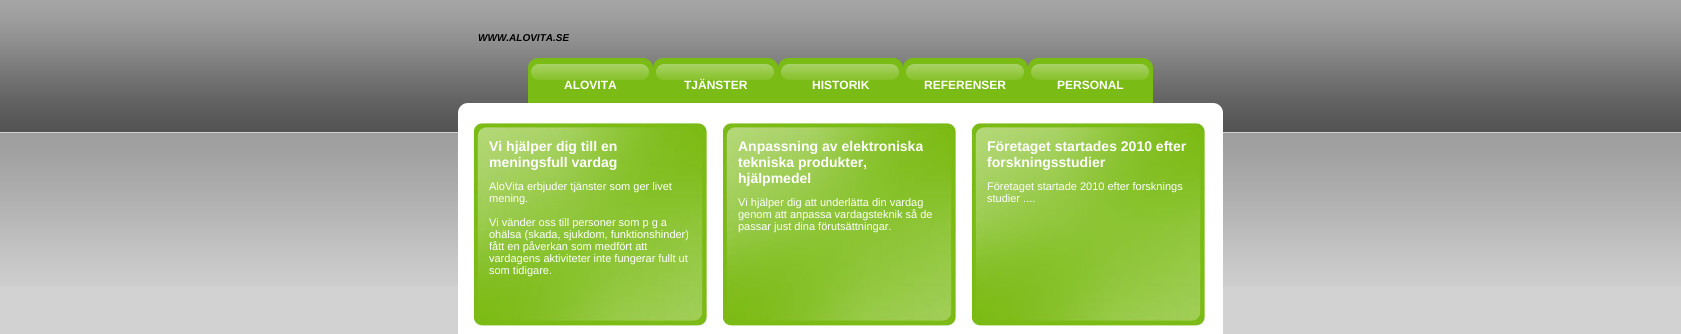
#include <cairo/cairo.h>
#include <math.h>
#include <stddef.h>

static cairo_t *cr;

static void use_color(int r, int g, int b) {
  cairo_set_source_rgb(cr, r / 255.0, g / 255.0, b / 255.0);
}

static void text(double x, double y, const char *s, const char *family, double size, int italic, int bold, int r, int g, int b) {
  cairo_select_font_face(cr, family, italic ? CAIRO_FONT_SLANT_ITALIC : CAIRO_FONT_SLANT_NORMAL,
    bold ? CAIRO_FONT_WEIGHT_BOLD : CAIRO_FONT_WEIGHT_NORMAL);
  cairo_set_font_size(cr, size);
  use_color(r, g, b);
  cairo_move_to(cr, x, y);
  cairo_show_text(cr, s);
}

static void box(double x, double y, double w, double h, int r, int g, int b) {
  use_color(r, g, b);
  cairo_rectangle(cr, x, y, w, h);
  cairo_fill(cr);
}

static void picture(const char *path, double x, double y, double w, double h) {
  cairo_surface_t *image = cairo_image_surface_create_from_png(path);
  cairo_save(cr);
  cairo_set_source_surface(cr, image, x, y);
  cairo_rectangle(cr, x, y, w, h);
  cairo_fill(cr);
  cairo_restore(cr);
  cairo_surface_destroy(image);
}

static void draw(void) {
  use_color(210, 210, 210);
  cairo_paint(cr);
  picture("img_01.png", 0, 0, 1681, 286);
  picture("img_02.png", 528, 58, 125, 45);
  picture("img_02.png", 653, 58, 125, 45);
  picture("img_02.png", 778, 58, 125, 45);
  picture("img_02.png", 903, 58, 125, 45);
  picture("img_02.png", 1028, 58, 125, 45);
  picture("img_03.png", 458, 103, 765, 10);
  box(458, 113, 765, 221, 255, 255, 255);
  picture("img_04.png", 474, 123, 233, 203);
  picture("img_04.png", 723, 123, 233, 203);
  picture("img_04.png", 972, 123, 233, 203);
  text(478, 41, "WWW.ALOVITA.SE", "Liberation Sans", 10, 1, 1, 0, 0, 0);
  text(564, 89, "ALOVITA", "Liberation Sans", 12, 0, 1, 255, 255, 255);
  text(684, 89, "TJÄNSTER", "Liberation Sans", 12, 0, 1, 255, 255, 255);
  text(812, 89, "HISTORIK", "Liberation Sans", 12, 0, 1, 255, 255, 255);
  text(924, 89, "REFERENSER", "Liberation Sans", 12, 0, 1, 255, 255, 255);
  text(1057, 89, "PERSONAL", "Liberation Sans", 12, 0, 1, 255, 255, 255);
  text(489, 151, "Vi hjälper dig till en", "Liberation Sans", 14, 0, 1, 255, 255, 255);
  text(489, 167, "meningsfull vardag", "Liberation Sans", 14, 0, 1, 255, 255, 255);
  text(489, 190, "AloVita erbjuder tjänster som ger livet", "Liberation Sans", 11, 0, 0, 255, 255, 255);
  text(489, 202, "mening.", "Liberation Sans", 11, 0, 0, 255, 255, 255);
  text(489, 226, "Vi vänder oss till personer som p g a", "Liberation Sans", 11, 0, 0, 255, 255, 255);
  text(489, 238, "ohälsa (skada, sjukdom, funktionshinder)", "Liberation Sans", 11, 0, 0, 255, 255, 255);
  text(489, 250, "fått en påverkan som medfört att", "Liberation Sans", 11, 0, 0, 255, 255, 255);
  text(489, 262, "vardagens aktiviteter inte fungerar fullt ut", "Liberation Sans", 11, 0, 0, 255, 255, 255);
  text(489, 274, "som tidigare.", "Liberation Sans", 11, 0, 0, 255, 255, 255);
  text(738, 151, "Anpassning av elektroniska", "Liberation Sans", 14, 0, 1, 255, 255, 255);
  text(738, 167, "tekniska produkter,", "Liberation Sans", 14, 0, 1, 255, 255, 255);
  text(738, 183, "hjälpmedel", "Liberation Sans", 14, 0, 1, 255, 255, 255);
  text(738, 206, "Vi hjälper dig att underlätta din vardag", "Liberation Sans", 11, 0, 0, 255, 255, 255);
  text(738, 218, "genom att anpassa vardagsteknik så de", "Liberation Sans", 11, 0, 0, 255, 255, 255);
  text(738, 230, "passar just dina förutsättningar.", "Liberation Sans", 11, 0, 0, 255, 255, 255);
  text(987, 151, "Företaget startades 2010 efter", "Liberation Sans", 14, 0, 1, 255, 255, 255);
  text(987, 167, "forskningsstudier", "Liberation Sans", 14, 0, 1, 255, 255, 255);
  text(987, 190, "Företaget startade 2010 efter forsknings", "Liberation Sans", 11, 0, 0, 255, 255, 255);
  text(987, 202, "studier ....", "Liberation Sans", 11, 0, 0, 255, 255, 255);
}

int main(void) {
  cairo_surface_t *surface = cairo_image_surface_create(CAIRO_FORMAT_RGB24, 1681, 334);
  cr = cairo_create(surface);
  cairo_font_options_t *options = cairo_font_options_create();
  cairo_font_options_set_hint_metrics(options, CAIRO_HINT_METRICS_OFF);
  cairo_font_options_set_hint_style(options, CAIRO_HINT_STYLE_NONE);
  cairo_set_font_options(cr, options);
  cairo_set_miter_limit(cr, 4);
  draw();
  cairo_surface_write_to_png(surface, "out.png");
  cairo_font_options_destroy(options);
  cairo_destroy(cr);
  cairo_surface_destroy(surface);
  return 0;
}
